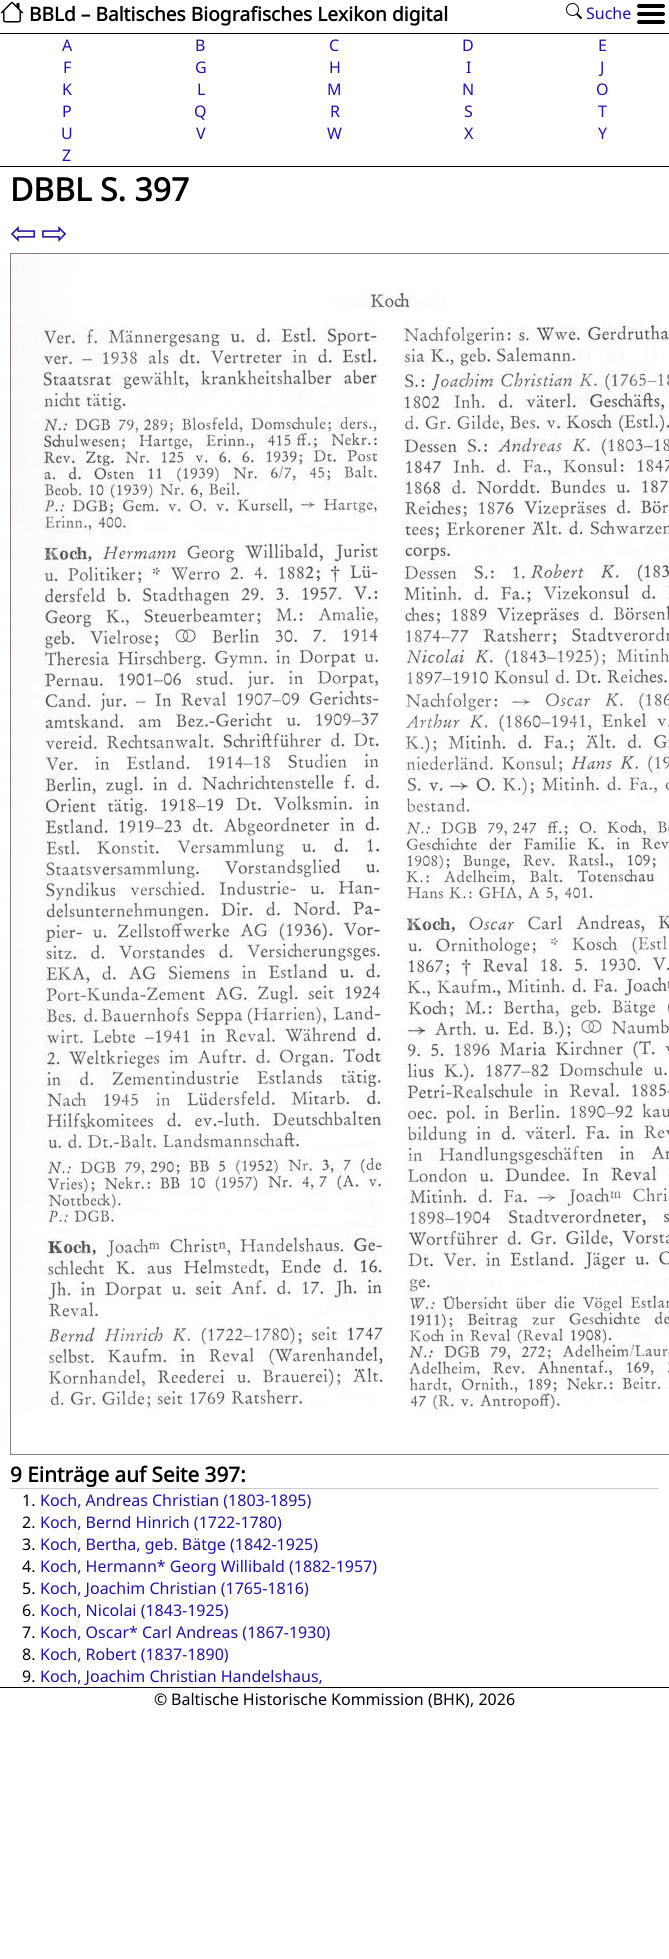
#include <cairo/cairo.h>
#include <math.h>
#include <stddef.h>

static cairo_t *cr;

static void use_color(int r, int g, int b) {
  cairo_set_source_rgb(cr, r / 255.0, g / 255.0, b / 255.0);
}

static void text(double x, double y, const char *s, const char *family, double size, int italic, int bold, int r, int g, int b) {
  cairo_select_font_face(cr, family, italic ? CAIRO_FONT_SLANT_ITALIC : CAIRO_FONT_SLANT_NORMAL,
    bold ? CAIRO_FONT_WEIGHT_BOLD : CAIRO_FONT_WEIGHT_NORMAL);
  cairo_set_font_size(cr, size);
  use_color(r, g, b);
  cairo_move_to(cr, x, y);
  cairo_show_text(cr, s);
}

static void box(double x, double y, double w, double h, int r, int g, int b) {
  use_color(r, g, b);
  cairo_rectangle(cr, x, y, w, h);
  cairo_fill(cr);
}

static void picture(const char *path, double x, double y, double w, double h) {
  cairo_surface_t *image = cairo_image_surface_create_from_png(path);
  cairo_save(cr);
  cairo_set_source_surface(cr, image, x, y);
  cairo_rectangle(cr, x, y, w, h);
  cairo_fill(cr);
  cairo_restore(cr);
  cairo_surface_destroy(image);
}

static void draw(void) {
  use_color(255, 255, 255);
  cairo_paint(cr);
  picture("img_01.png", 0, 1, 24, 22);
  picture("img_02.png", 566, 3, 16, 16);
  picture("img_03.png", 637, 4, 28, 20);
  box(0, 33, 669, 1, 0, 0, 17);
  box(0, 166, 669, 1, 0, 0, 17);
  cairo_rectangle(cr, 10.5, 253.5, 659, 1201);
  use_color(139, 125, 125);
  cairo_set_line_width(cr, 1);
  cairo_stroke(cr);
  picture("img_04.png", 11, 254, 658, 1160);
  box(10, 1488, 649, 1, 204, 204, 204);
  box(0, 1687, 669, 1, 0, 0, 17);
  text(29, 21, "BBLd – Baltisches Biografisches Lexikon digital", "Noto Sans", 19.2, 0, 1, 0, 0, 0);
  text(586, 19, "Suche", "Noto Sans", 16, 0, 0, 34, 17, 170);
  text(62, 51, "A", "Noto Sans", 16, 0, 0, 34, 17, 170);
  text(195, 51, "B", "Noto Sans", 16, 0, 0, 34, 17, 170);
  text(329, 51, "C", "Noto Sans", 16, 0, 0, 34, 17, 170);
  text(462, 51, "D", "Noto Sans", 16, 0, 0, 34, 17, 170);
  text(598, 51, "E", "Noto Sans", 16, 0, 0, 34, 17, 170);
  text(63, 73, "F", "Noto Sans", 16, 0, 0, 34, 17, 170);
  text(195, 73, "G", "Noto Sans", 16, 0, 0, 34, 17, 170);
  text(329, 73, "H", "Noto Sans", 16, 0, 0, 34, 17, 170);
  text(466, 73, "I", "Noto Sans", 16, 0, 0, 34, 17, 170);
  text(600, 73, "J", "Noto Sans", 16, 0, 0, 34, 17, 170);
  text(62, 95, "K", "Noto Sans", 16, 0, 0, 34, 17, 170);
  text(197, 95, "L", "Noto Sans", 16, 0, 0, 34, 17, 170);
  text(327, 95, "M", "Noto Sans", 16, 0, 0, 34, 17, 170);
  text(462, 95, "N", "Noto Sans", 16, 0, 0, 34, 17, 170);
  text(596, 95, "O", "Noto Sans", 16, 0, 0, 34, 17, 170);
  text(62, 117, "P", "Noto Sans", 16, 0, 0, 34, 17, 170);
  text(194, 117, "Q", "Noto Sans", 16, 0, 0, 34, 17, 170);
  text(330, 117, "R", "Noto Sans", 16, 0, 0, 34, 17, 170);
  text(464, 117, "S", "Noto Sans", 16, 0, 0, 34, 17, 170);
  text(598, 117, "T", "Noto Sans", 16, 0, 0, 34, 17, 170);
  text(61, 139, "U", "Noto Sans", 16, 0, 0, 34, 17, 170);
  text(196, 139, "V", "Noto Sans", 16, 0, 0, 34, 17, 170);
  text(327, 139, "W", "Noto Sans", 16, 0, 0, 34, 17, 170);
  text(464, 139, "X", "Noto Sans", 16, 0, 0, 34, 17, 170);
  text(598, 139, "Y", "Noto Sans", 16, 0, 0, 34, 17, 170);
  text(62, 161, "Z", "Noto Sans", 16, 0, 0, 34, 17, 170);
  text(10, 201, "DBBL S. 397", "Noto Sans", 32, 0, 1, 0, 0, 0);
  text(10, 244, "⇦", "DejaVu Sans", 32, 0, 0, 34, 17, 170);
  text(41, 244, "⇨", "DejaVu Sans", 32, 0, 0, 34, 17, 170);
  text(10, 1482, "9 Einträge auf Seite 397:", "Noto Sans", 20.75, 0, 1, 0, 0, 0);
  text(22, 1506, "1.", "Noto Sans", 16, 0, 0, 0, 0, 0);
  text(40, 1506, "Koch, Andreas Christian (1803-1895)", "Noto Sans", 16, 0, 0, 34, 17, 170);
  text(22, 1528, "2.", "Noto Sans", 16, 0, 0, 0, 0, 0);
  text(40, 1528, "Koch, Bernd Hinrich (1722-1780)", "Noto Sans", 16, 0, 0, 34, 17, 170);
  text(22, 1550, "3.", "Noto Sans", 16, 0, 0, 0, 0, 0);
  text(40, 1550, "Koch, Bertha, geb. Bätge (1842-1925)", "Noto Sans", 16, 0, 0, 34, 17, 170);
  text(22, 1572, "4.", "Noto Sans", 16, 0, 0, 0, 0, 0);
  text(40, 1572, "Koch, Hermann* Georg Willibald (1882-1957)", "Noto Sans", 16, 0, 0, 34, 17, 170);
  text(22, 1594, "5.", "Noto Sans", 16, 0, 0, 0, 0, 0);
  text(40, 1594, "Koch, Joachim Christian (1765-1816)", "Noto Sans", 16, 0, 0, 34, 17, 170);
  text(22, 1616, "6.", "Noto Sans", 16, 0, 0, 0, 0, 0);
  text(40, 1616, "Koch, Nicolai (1843-1925)", "Noto Sans", 16, 0, 0, 34, 17, 170);
  text(22, 1638, "7.", "Noto Sans", 16, 0, 0, 0, 0, 0);
  text(40, 1638, "Koch, Oscar* Carl Andreas (1867-1930)", "Noto Sans", 16, 0, 0, 34, 17, 170);
  text(22, 1660, "8.", "Noto Sans", 16, 0, 0, 0, 0, 0);
  text(40, 1660, "Koch, Robert (1837-1890)", "Noto Sans", 16, 0, 0, 34, 17, 170);
  text(22, 1682, "9.", "Noto Sans", 16, 0, 0, 0, 0, 0);
  text(40, 1682, "Koch, Joachim Christian Handelshaus,", "Noto Sans", 16, 0, 0, 34, 17, 170);
  text(154, 1705, "©", "Noto Sans", 16, 0, 0, 0, 0, 0);
  text(171, 1705, "Baltische Historische Kommission (BHK)", "Noto Sans", 16, 0, 0, 0, 0, 17);
  text(470, 1705, ", 2026", "Noto Sans", 16, 0, 0, 0, 0, 0);
}

int main(void) {
  cairo_surface_t *surface = cairo_image_surface_create(CAIRO_FORMAT_RGB24, 669, 1959);
  cr = cairo_create(surface);
  cairo_font_options_t *options = cairo_font_options_create();
  cairo_font_options_set_hint_metrics(options, CAIRO_HINT_METRICS_OFF);
  cairo_font_options_set_hint_style(options, CAIRO_HINT_STYLE_NONE);
  cairo_set_font_options(cr, options);
  cairo_set_miter_limit(cr, 4);
  draw();
  cairo_surface_write_to_png(surface, "out.png");
  cairo_font_options_destroy(options);
  cairo_destroy(cr);
  cairo_surface_destroy(surface);
  return 0;
}
